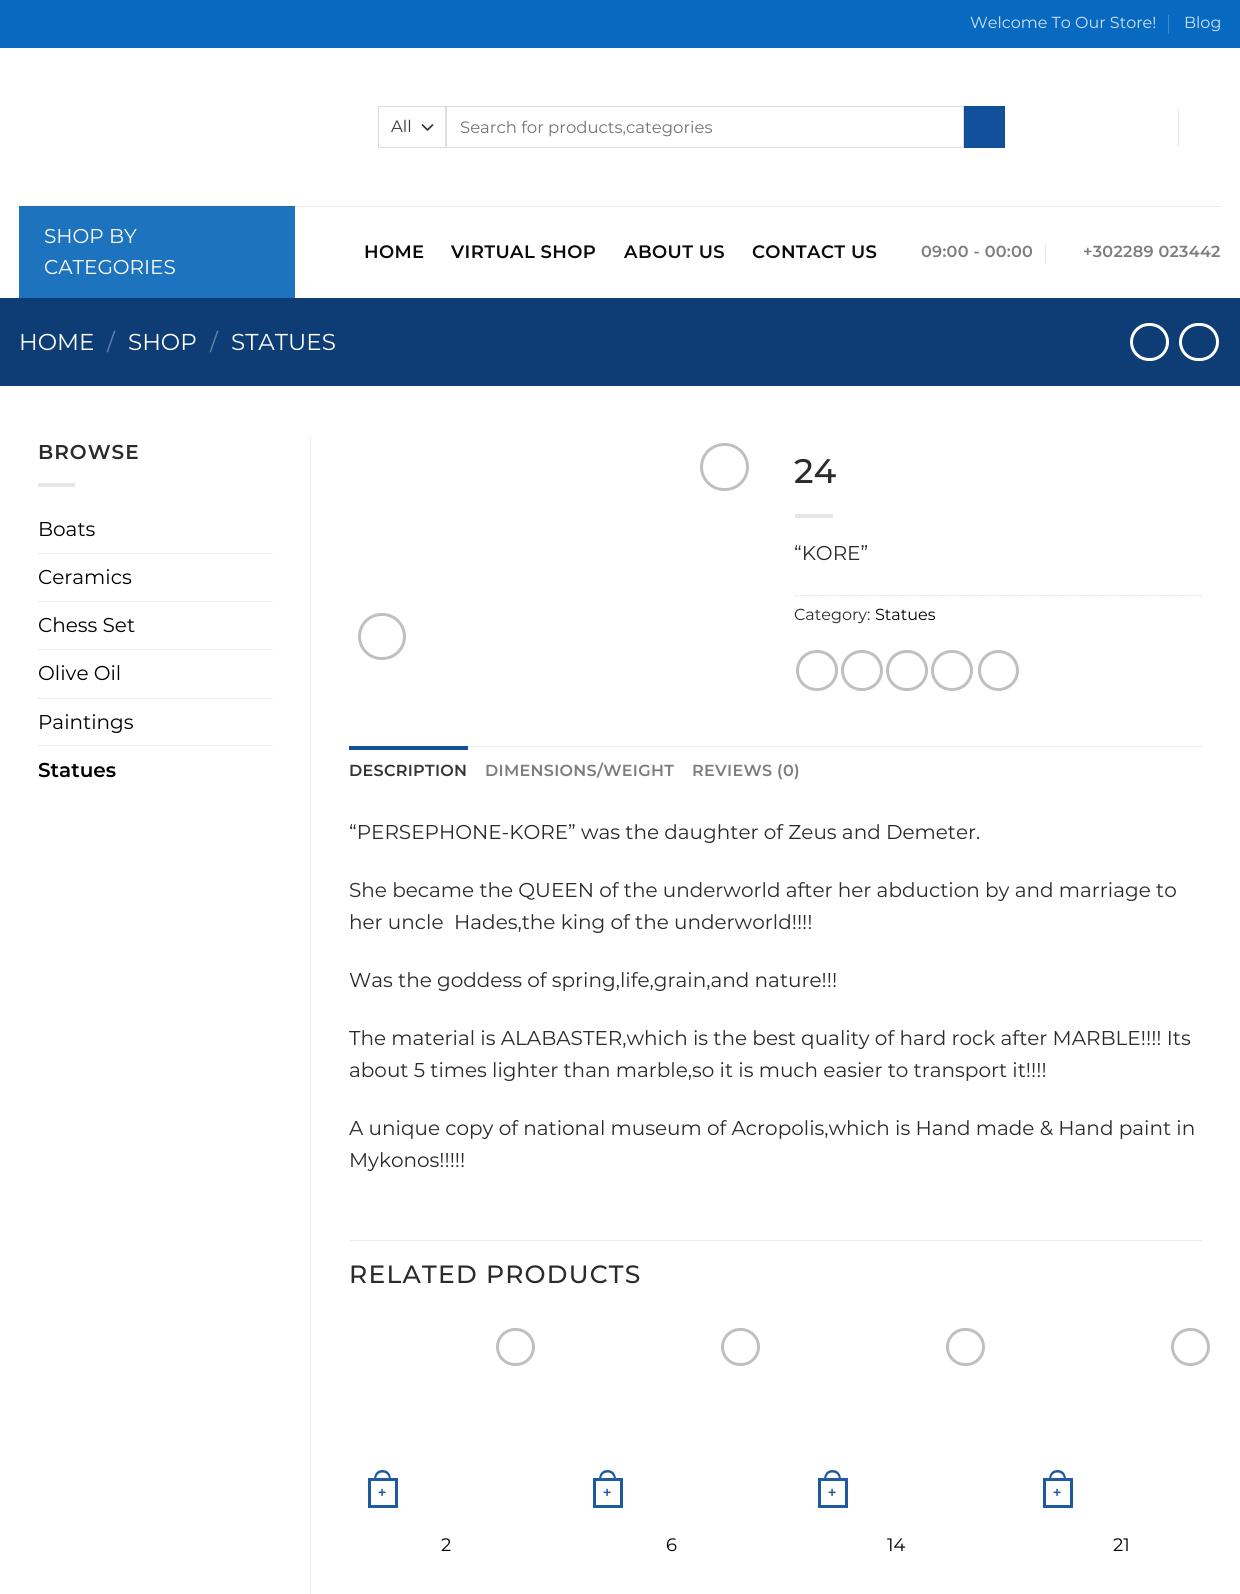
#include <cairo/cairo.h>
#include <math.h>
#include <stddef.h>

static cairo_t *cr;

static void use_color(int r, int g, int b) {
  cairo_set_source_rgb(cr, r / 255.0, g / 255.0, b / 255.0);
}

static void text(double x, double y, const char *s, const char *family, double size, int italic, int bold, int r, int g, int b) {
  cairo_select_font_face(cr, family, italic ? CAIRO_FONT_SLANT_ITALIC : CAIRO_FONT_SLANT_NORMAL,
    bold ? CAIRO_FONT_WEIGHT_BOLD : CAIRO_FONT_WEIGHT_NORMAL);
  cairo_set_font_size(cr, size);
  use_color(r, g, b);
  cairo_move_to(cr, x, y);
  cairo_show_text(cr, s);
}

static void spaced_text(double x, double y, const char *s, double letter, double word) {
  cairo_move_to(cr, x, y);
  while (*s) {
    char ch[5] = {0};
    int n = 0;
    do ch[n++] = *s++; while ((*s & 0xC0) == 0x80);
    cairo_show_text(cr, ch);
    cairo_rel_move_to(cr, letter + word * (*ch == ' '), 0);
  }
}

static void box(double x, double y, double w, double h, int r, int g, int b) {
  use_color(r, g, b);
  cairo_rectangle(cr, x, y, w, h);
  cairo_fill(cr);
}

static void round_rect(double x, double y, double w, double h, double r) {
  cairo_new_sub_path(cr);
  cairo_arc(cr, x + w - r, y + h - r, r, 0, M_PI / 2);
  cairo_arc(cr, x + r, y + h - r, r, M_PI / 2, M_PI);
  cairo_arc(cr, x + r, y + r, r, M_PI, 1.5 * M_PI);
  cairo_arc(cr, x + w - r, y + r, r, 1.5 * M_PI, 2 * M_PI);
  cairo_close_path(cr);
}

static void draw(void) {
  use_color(255, 255, 255);
  cairo_paint(cr);
  box(295, 206, 926, 1, 234, 234, 234);
  box(0, 0, 1240, 48, 7, 105, 191);
  box(1168, 15, 1, 19, 57, 135, 204);
  cairo_new_path(cr);
  cairo_move_to(cr, 422.5, 125);
  cairo_line_to(cr, 427.5, 130);
  cairo_line_to(cr, 432.5, 125);
  use_color(51, 51, 51);
  cairo_set_line_width(cr, 1.7);
  cairo_set_line_cap(cr, CAIRO_LINE_CAP_ROUND);
  cairo_set_line_join(cr, CAIRO_LINE_JOIN_ROUND);
  cairo_stroke(cr);
  cairo_rectangle(cr, 378.5, 106.5, 67, 41);
  use_color(221, 221, 221);
  cairo_set_line_width(cr, 1);
  cairo_set_line_cap(cr, CAIRO_LINE_CAP_BUTT);
  cairo_set_line_join(cr, CAIRO_LINE_JOIN_MITER);
  cairo_stroke(cr);
  cairo_rectangle(cr, 446.5, 106.5, 517, 41);
  cairo_stroke(cr);
  use_color(17, 81, 155);
  cairo_rectangle(cr, 964.5, 106.5, 40, 41);
  cairo_fill_preserve(cr);
  use_color(16, 77, 147);
  cairo_stroke(cr);
  box(1178, 109, 1, 37, 230, 230, 230);
  box(19, 207, 276, 91, 30, 115, 190);
  box(19, 206, 276, 1, 31, 108, 175);
  box(1045, 244, 1, 19, 230, 230, 230);
  box(0, 298, 1240, 88, 13, 61, 116);
  round_rect(1131.5, 324.5, 36, 35, 17.5);
  use_color(255, 255, 255);
  cairo_set_line_width(cr, 3);
  cairo_stroke(cr);
  round_rect(1180.5, 324.5, 37, 35, 17.5);
  cairo_stroke(cr);
  box(38, 483, 37, 4, 230, 230, 230);
  box(38, 553, 235, 1, 236, 236, 236);
  box(38, 601, 235, 1, 236, 236, 236);
  box(38, 649, 235, 1, 236, 236, 236);
  box(38, 698, 235, 1, 236, 236, 236);
  box(38, 745, 235, 1, 236, 236, 236);
  box(310, 436, 1, 1158, 236, 236, 236);
  round_rect(701.5, 444.5, 46, 45, 22.5);
  use_color(192, 192, 192);
  cairo_stroke(cr);
  round_rect(359.5, 614.5, 45, 44, 22);
  cairo_stroke(cr);
  box(795, 514, 38, 4, 230, 230, 230);
  cairo_new_path(cr);
  cairo_move_to(cr, 795, 595.5);
  cairo_line_to(cr, 1202.5, 595.5);
  use_color(221, 221, 221);
  cairo_set_line_width(cr, 1.2);
  cairo_set_dash(cr, (double[]){1.25, 1.25}, 2, 0);
  cairo_stroke(cr);
  round_rect(797.5, 651.5, 39, 38, 19);
  use_color(192, 192, 192);
  cairo_set_line_width(cr, 3);
  cairo_set_dash(cr, NULL, 0, 0);
  cairo_stroke(cr);
  round_rect(842.5, 651.5, 39, 38, 19);
  cairo_stroke(cr);
  round_rect(887.5, 651.5, 39, 38, 19);
  cairo_stroke(cr);
  round_rect(932.5, 651.5, 39, 38, 19);
  cairo_stroke(cr);
  cairo_arc(cr, 998.5, 670.5, 19, 0, 2 * M_PI);
  cairo_stroke(cr);
  box(468, 746, 735, 1, 236, 236, 236);
  box(349, 746, 119, 4, 17, 81, 155);
  box(349, 1240, 854, 1, 236, 236, 236);
  round_rect(497.5, 1329.5, 36, 35, 17.5);
  use_color(192, 192, 192);
  cairo_stroke(cr);
  cairo_rectangle(cr, 369.5, 1479.5, 27, 27);
  use_color(29, 90, 160);
  cairo_stroke(cr);
  cairo_set_fill_rule(cr, CAIRO_FILL_RULE_EVEN_ODD);
  cairo_new_path(cr);
  cairo_move_to(cr, 382.5, 1470);
  cairo_curve_to(cr, 388.5, 1470, 391, 1474.5, 391, 1480);
  cairo_line_to(cr, 374, 1480);
  cairo_curve_to(cr, 374, 1474.5, 376.5, 1470, 382.5, 1470);
  cairo_close_path(cr);
  cairo_move_to(cr, 382.5, 1472.5);
  cairo_curve_to(cr, 387, 1472.5, 389, 1476, 389, 1480);
  cairo_line_to(cr, 376, 1480);
  cairo_curve_to(cr, 376, 1476, 378, 1472.5, 382.5, 1472.5);
  cairo_close_path(cr);
  cairo_fill(cr);
  round_rect(722.5, 1329.5, 36, 35, 17.5);
  use_color(192, 192, 192);
  cairo_stroke(cr);
  cairo_rectangle(cr, 594.5, 1479.5, 27, 27);
  use_color(29, 90, 160);
  cairo_stroke(cr);
  cairo_new_path(cr);
  cairo_move_to(cr, 607.5, 1470);
  cairo_curve_to(cr, 613.5, 1470, 616, 1474.5, 616, 1480);
  cairo_line_to(cr, 599, 1480);
  cairo_curve_to(cr, 599, 1474.5, 601.5, 1470, 607.5, 1470);
  cairo_close_path(cr);
  cairo_move_to(cr, 607.5, 1472.5);
  cairo_curve_to(cr, 612, 1472.5, 614, 1476, 614, 1480);
  cairo_line_to(cr, 601, 1480);
  cairo_curve_to(cr, 601, 1476, 603, 1472.5, 607.5, 1472.5);
  cairo_close_path(cr);
  cairo_fill(cr);
  round_rect(947.5, 1329.5, 36, 35, 17.5);
  use_color(192, 192, 192);
  cairo_stroke(cr);
  cairo_rectangle(cr, 819.5, 1479.5, 27, 27);
  use_color(29, 90, 160);
  cairo_stroke(cr);
  cairo_new_path(cr);
  cairo_move_to(cr, 832.5, 1470);
  cairo_curve_to(cr, 838.5, 1470, 841, 1474.5, 841, 1480);
  cairo_line_to(cr, 824, 1480);
  cairo_curve_to(cr, 824, 1474.5, 826.5, 1470, 832.5, 1470);
  cairo_close_path(cr);
  cairo_move_to(cr, 832.5, 1472.5);
  cairo_curve_to(cr, 837, 1472.5, 839, 1476, 839, 1480);
  cairo_line_to(cr, 826, 1480);
  cairo_curve_to(cr, 826, 1476, 828, 1472.5, 832.5, 1472.5);
  cairo_close_path(cr);
  cairo_fill(cr);
  round_rect(1172.5, 1329.5, 36, 35, 17.5);
  use_color(192, 192, 192);
  cairo_stroke(cr);
  cairo_rectangle(cr, 1044.5, 1479.5, 27, 27);
  use_color(29, 90, 160);
  cairo_stroke(cr);
  cairo_new_path(cr);
  cairo_move_to(cr, 1057.5, 1470);
  cairo_curve_to(cr, 1063.5, 1470, 1066, 1474.5, 1066, 1480);
  cairo_line_to(cr, 1049, 1480);
  cairo_curve_to(cr, 1049, 1474.5, 1051.5, 1470, 1057.5, 1470);
  cairo_close_path(cr);
  cairo_move_to(cr, 1057.5, 1472.5);
  cairo_curve_to(cr, 1062, 1472.5, 1064, 1476, 1064, 1480);
  cairo_line_to(cr, 1051, 1480);
  cairo_curve_to(cr, 1051, 1476, 1053, 1472.5, 1057.5, 1472.5);
  cairo_close_path(cr);
  cairo_fill(cr);
  text(970, 28, "Welcome To Our Store!", "Montserrat", 16, 0, 0, 205, 225, 242);
  text(1184, 28, "Blog", "Montserrat", 16, 0, 0, 205, 225, 242);
  text(391, 132, "All", "Montserrat", 16.5, 0, 0, 53, 53, 53);
  text(460, 133, "Search for products,categories", "Montserrat", 16.5, 0, 0, 117, 117, 117);
  text(44, 243, "SHOP BY", "Montserrat", 20, 0, 0, 255, 255, 255);
  text(44, 274, "CATEGORIES", "Montserrat", 20, 0, 0, 255, 255, 255);
  cairo_select_font_face(cr, "Montserrat SemiBold", CAIRO_FONT_SLANT_NORMAL, CAIRO_FONT_WEIGHT_NORMAL);
  cairo_set_font_size(cr, 18);
  use_color(10, 10, 10);
  spaced_text(364, 258, "HOME", 0.4, 0);
  spaced_text(451, 258, "VIRTUAL SHOP", 0.4, 0);
  spaced_text(624, 258, "ABOUT US", 0.4, 0);
  spaced_text(752, 258, "CONTACT US", 0.4, 0);
  cairo_set_font_size(cr, 16);
  use_color(125, 125, 125);
  spaced_text(921, 257, "09:00 - 00:00", 0.3, 0);
  spaced_text(1083, 257, "+302289 023442", 0.3, 0);
  text(19, 350, "HOME", "Montserrat", 23, 0, 0, 255, 255, 255);
  text(107, 350, "/", "Montserrat", 23, 0, 0, 98, 129, 165);
  text(128, 350, "SHOP", "Montserrat", 23, 0, 0, 255, 255, 255);
  text(210, 350, "/", "Montserrat", 23, 0, 0, 98, 129, 165);
  text(231, 350, "STATUES", "Montserrat", 23, 0, 0, 255, 255, 255);
  cairo_select_font_face(cr, "Montserrat SemiBold", CAIRO_FONT_SLANT_NORMAL, CAIRO_FONT_WEIGHT_NORMAL);
  cairo_set_font_size(cr, 20);
  use_color(43, 43, 43);
  spaced_text(38, 459, "BROWSE", 1, 0);
  text(38, 536, "Boats", "Montserrat", 20, 0, 0, 0, 0, 0);
  text(38, 584, "Ceramics", "Montserrat", 20, 0, 0, 0, 0, 0);
  text(38, 632, "Chess Set", "Montserrat", 20, 0, 0, 0, 0, 0);
  text(38, 680, "Olive Oil", "Montserrat", 20, 0, 0, 0, 0, 0);
  text(38, 729, "Paintings", "Montserrat", 20, 0, 0, 0, 0, 0);
  text(38, 777, "Statues", "Montserrat SemiBold", 20, 0, 0, 0, 0, 0);
  text(794, 483, "24", "Montserrat Medium", 34, 0, 0, 43, 43, 43);
  text(794, 560, "“KORE”", "Montserrat", 20, 0, 0, 43, 43, 43);
  text(794, 620, "Category:", "Montserrat", 16, 0, 0, 43, 43, 43);
  text(875, 620, "Statues", "Montserrat", 16, 0, 0, 0, 0, 0);
  cairo_select_font_face(cr, "Montserrat SemiBold", CAIRO_FONT_SLANT_NORMAL, CAIRO_FONT_WEIGHT_NORMAL);
  use_color(53, 53, 53);
  spaced_text(349, 776, "DESCRIPTION", 0.3, 0);
  use_color(125, 125, 125);
  spaced_text(485, 776, "DIMENSIONS/WEIGHT", 0.3, 0);
  spaced_text(692, 776, "REVIEWS (0)", 0.3, 0);
  text(349, 839, "“PERSEPHONE-KORE” was the daughter of Zeus and Demeter.", "Montserrat", 20, 0, 0, 43, 43, 43);
  text(349, 897, "She became the QUEEN of the underworld after her abduction by and marriage to", "Montserrat", 20, 0, 0, 43, 43, 43);
  text(349, 929, "her uncle  Hades,the king of the underworld!!!!", "Montserrat", 20, 0, 0, 43, 43, 43);
  text(349, 987, "Was the goddess of spring,life,grain,and nature!!!", "Montserrat", 20, 0, 0, 43, 43, 43);
  text(349, 1045, "The material is ALABASTER,which is the best quality of hard rock after MARBLE!!!! Its", "Montserrat", 20, 0, 0, 43, 43, 43);
  text(349, 1077, "about 5 times lighter than marble,so it is much easier to transport it!!!!", "Montserrat", 20, 0, 0, 43, 43, 43);
  text(349, 1135, "A unique copy of national museum of Acropolis,which is Hand made & Hand paint in", "Montserrat", 20, 0, 0, 43, 43, 43);
  text(349, 1167, "Mykonos!!!!!", "Montserrat", 20, 0, 0, 43, 43, 43);
  cairo_select_font_face(cr, "Montserrat Medium", CAIRO_FONT_SLANT_NORMAL, CAIRO_FONT_WEIGHT_NORMAL);
  cairo_set_font_size(cr, 25);
  spaced_text(349, 1283, "RELATED PRODUCTS", 1.25, 0);
  text(378, 1497, "+", "Liberation Sans", 14, 0, 1, 29, 90, 160);
  text(441, 1551, "2", "Montserrat", 18, 0, 0, 0, 0, 0);
  text(603, 1497, "+", "Liberation Sans", 14, 0, 1, 29, 90, 160);
  text(666, 1551, "6", "Montserrat", 18, 0, 0, 0, 0, 0);
  text(828, 1497, "+", "Liberation Sans", 14, 0, 1, 29, 90, 160);
  text(887, 1551, "14", "Montserrat", 18, 0, 0, 0, 0, 0);
  text(1053, 1497, "+", "Liberation Sans", 14, 0, 1, 29, 90, 160);
  text(1113, 1551, "21", "Montserrat", 18, 0, 0, 0, 0, 0);
}

int main(void) {
  cairo_surface_t *surface = cairo_image_surface_create(CAIRO_FORMAT_RGB24, 1240, 1594);
  cr = cairo_create(surface);
  cairo_font_options_t *options = cairo_font_options_create();
  cairo_font_options_set_hint_metrics(options, CAIRO_HINT_METRICS_OFF);
  cairo_font_options_set_hint_style(options, CAIRO_HINT_STYLE_NONE);
  cairo_set_font_options(cr, options);
  cairo_set_miter_limit(cr, 4);
  draw();
  cairo_surface_write_to_png(surface, "out.png");
  cairo_font_options_destroy(options);
  cairo_destroy(cr);
  cairo_surface_destroy(surface);
  return 0;
}
